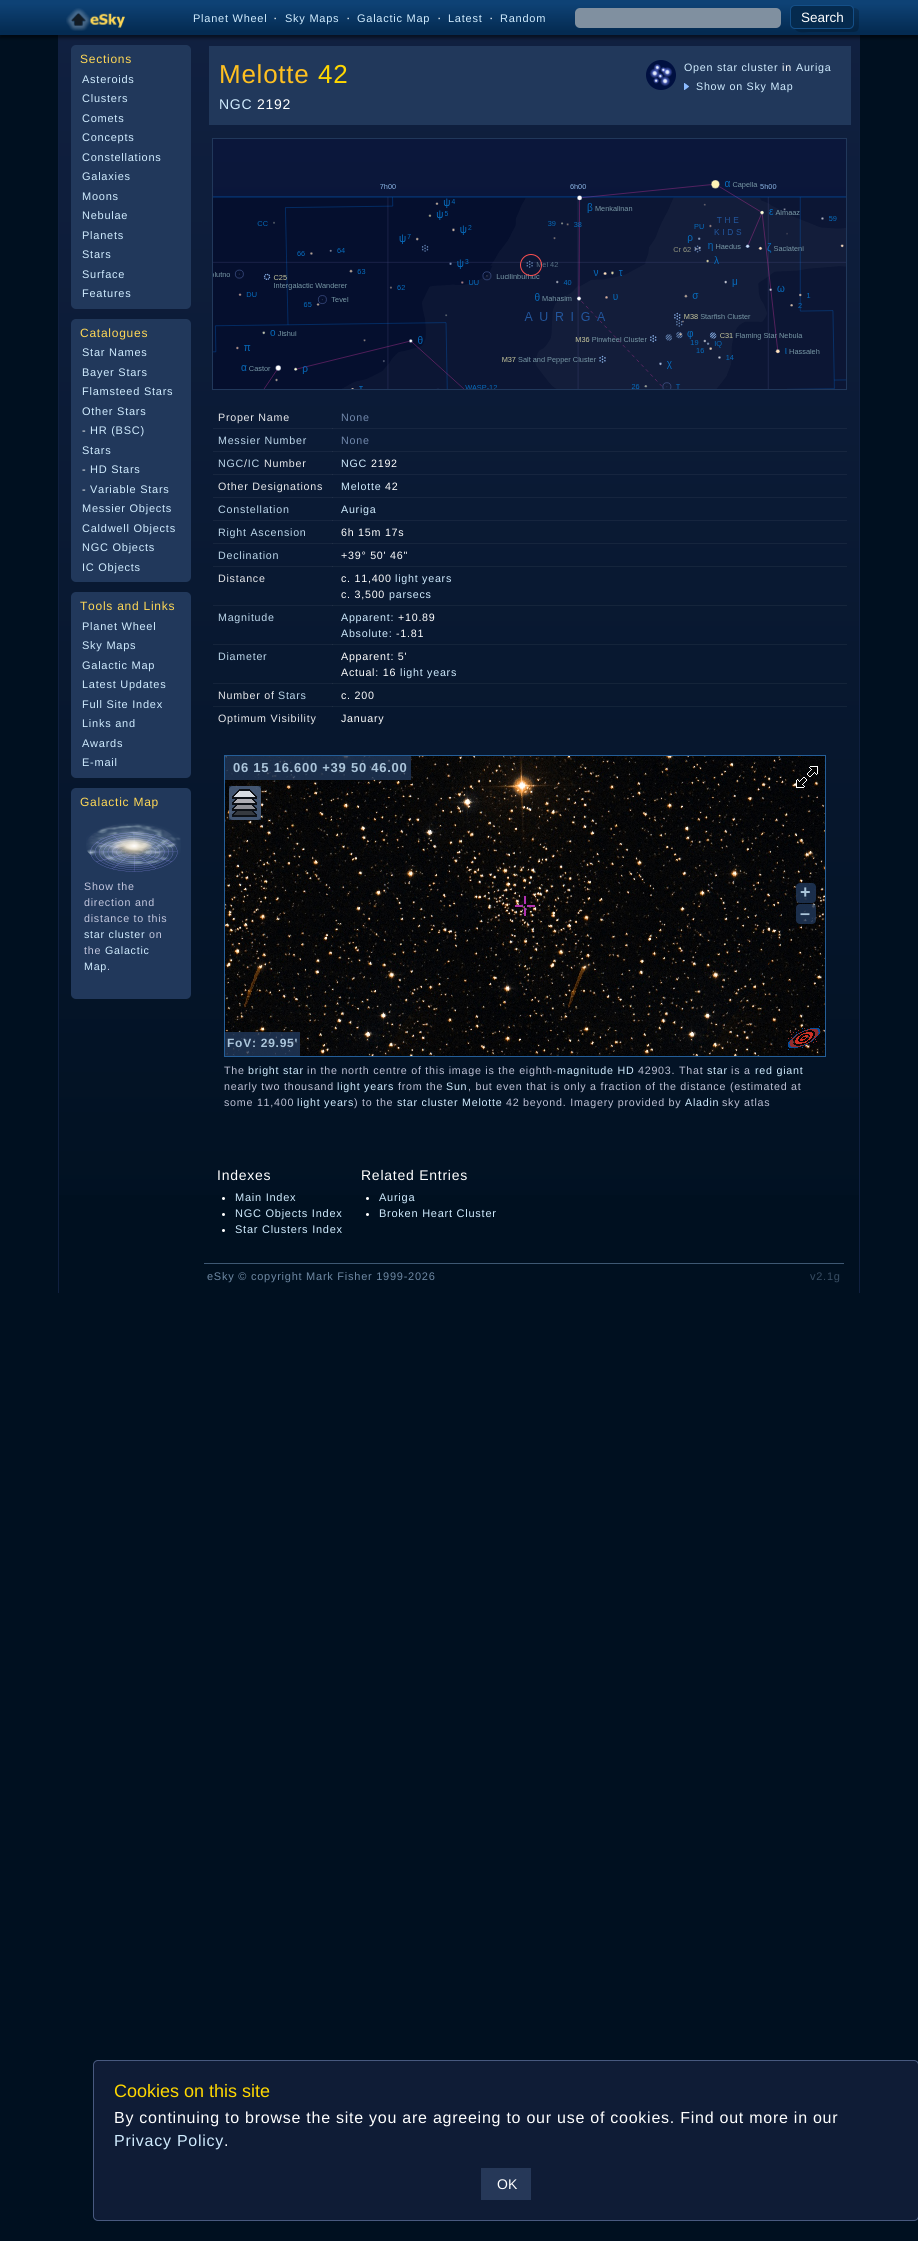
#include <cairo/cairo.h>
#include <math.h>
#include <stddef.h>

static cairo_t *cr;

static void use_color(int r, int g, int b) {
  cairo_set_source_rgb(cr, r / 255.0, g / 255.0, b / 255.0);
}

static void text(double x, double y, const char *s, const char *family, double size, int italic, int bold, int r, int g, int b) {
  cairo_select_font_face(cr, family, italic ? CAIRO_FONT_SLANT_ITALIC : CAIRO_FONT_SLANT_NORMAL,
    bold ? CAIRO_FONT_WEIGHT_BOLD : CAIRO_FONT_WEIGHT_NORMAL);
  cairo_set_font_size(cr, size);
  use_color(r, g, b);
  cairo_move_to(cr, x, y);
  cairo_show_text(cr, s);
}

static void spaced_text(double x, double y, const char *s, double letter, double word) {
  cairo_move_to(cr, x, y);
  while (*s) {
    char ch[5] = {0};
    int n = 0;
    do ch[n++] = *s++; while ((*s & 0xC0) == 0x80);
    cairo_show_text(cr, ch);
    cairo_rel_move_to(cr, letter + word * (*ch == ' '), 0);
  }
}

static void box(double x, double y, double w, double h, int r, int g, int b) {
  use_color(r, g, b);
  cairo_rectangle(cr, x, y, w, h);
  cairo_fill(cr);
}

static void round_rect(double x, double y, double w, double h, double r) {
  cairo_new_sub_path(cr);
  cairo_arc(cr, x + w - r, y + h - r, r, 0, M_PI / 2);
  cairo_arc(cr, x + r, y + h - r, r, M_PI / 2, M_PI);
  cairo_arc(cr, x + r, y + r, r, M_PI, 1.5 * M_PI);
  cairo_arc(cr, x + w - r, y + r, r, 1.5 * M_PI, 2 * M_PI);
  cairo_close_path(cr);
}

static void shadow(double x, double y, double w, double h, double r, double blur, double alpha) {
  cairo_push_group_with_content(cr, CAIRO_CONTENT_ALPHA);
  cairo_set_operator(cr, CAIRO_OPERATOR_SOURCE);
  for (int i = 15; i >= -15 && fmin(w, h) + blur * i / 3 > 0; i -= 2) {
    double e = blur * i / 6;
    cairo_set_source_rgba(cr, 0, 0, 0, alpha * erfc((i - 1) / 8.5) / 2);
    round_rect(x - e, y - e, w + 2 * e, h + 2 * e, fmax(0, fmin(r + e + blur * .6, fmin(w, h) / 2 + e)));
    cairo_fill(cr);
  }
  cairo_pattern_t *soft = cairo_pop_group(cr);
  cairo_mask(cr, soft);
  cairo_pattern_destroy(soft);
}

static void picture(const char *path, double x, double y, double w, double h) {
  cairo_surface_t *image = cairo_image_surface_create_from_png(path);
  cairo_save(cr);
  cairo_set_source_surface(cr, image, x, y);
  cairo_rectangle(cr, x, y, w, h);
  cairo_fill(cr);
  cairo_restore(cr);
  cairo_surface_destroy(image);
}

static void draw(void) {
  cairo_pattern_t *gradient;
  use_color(0, 16, 32);
  cairo_paint(cr);
  gradient = cairo_pattern_create_linear(459, 33, 459, 1293);
  cairo_pattern_add_color_stop_rgba(gradient, 0, 0.063, 0.125, 0.251, 1);
  cairo_pattern_add_color_stop_rgba(gradient, 1, 0, 0.063, 0.125, 1);
  cairo_set_source(cr, gradient);
  cairo_pattern_destroy(gradient);
  cairo_rectangle(cr, 59, 35, 800, 1160);
  cairo_fill(cr);
  box(859, 33, 1, 1260, 16, 32, 64);
  box(58, 33, 1, 1260, 16, 32, 64);
  use_color(0, 0, 0);
  shadow(0, 3, 918, 35, 0, 1.5, 0.5);
  gradient = cairo_pattern_create_linear(0, 0, 0, 35);
  cairo_pattern_add_color_stop_rgba(gradient, 0.1, 0.055, 0.259, 0.459, 1);
  cairo_pattern_add_color_stop_rgba(gradient, 0.9, 0.016, 0.169, 0.322, 1);
  cairo_set_source(cr, gradient);
  cairo_pattern_destroy(gradient);
  cairo_rectangle(cr, 0, 0, 918, 35);
  cairo_fill(cr);
  picture("img_01.png", 66, 8, 59, 23);
  use_color(128, 144, 160);
  round_rect(575, 8, 206, 20, 5);
  cairo_fill(cr);
  cairo_set_source_rgba(cr, 0, 0, 0, 0.2);
  cairo_new_path(cr);
  cairo_move_to(cr, 795, 29);
  cairo_curve_to(cr, 798, 34, 806, 32, 809, 32);
  cairo_line_to(cr, 845, 32);
  cairo_curve_to(cr, 859, 32, 859, 33, 859, 20);
  cairo_line_to(cr, 859, 11);
  cairo_curve_to(cr, 858, 9, 856, 8, 854, 8);
  cairo_line_to(cr, 854, 19);
  cairo_curve_to(cr, 854, 23, 854, 29, 849, 29);
  cairo_close_path(cr);
  cairo_fill(cr);
  use_color(5, 42, 78);
  round_rect(790.5, 5.5, 63, 23, 4.5);
  cairo_fill_preserve(cr);
  use_color(20, 79, 136);
  cairo_set_line_width(cr, 1);
  cairo_stroke(cr);
  gradient = cairo_pattern_create_linear(459, 33, 459, 1293);
  cairo_pattern_add_color_stop_rgba(gradient, 0, 0.047, 0.094, 0.239, 1);
  cairo_pattern_add_color_stop_rgba(gradient, 1, 0, 0.047, 0.145, 1);
  cairo_set_source(cr, gradient);
  cairo_pattern_destroy(gradient);
  cairo_rectangle(cr, 213, 139, 633, 58);
  cairo_fill(cr);
  gradient = cairo_pattern_create_linear(459, 33, 459, 1293);
  cairo_pattern_add_color_stop_rgba(gradient, 0, 0.11, 0.169, 0.29, 1);
  cairo_pattern_add_color_stop_rgba(gradient, 1, 0.051, 0.11, 0.169, 1);
  cairo_set_source(cr, gradient);
  cairo_pattern_destroy(gradient);
  cairo_rectangle(cr, 213, 428, 120, 1);
  cairo_fill(cr);
  cairo_rectangle(cr, 213, 451, 120, 1);
  cairo_fill(cr);
  cairo_rectangle(cr, 213, 474, 120, 1);
  cairo_fill(cr);
  cairo_rectangle(cr, 213, 497, 120, 1);
  cairo_fill(cr);
  cairo_rectangle(cr, 213, 520, 120, 1);
  cairo_fill(cr);
  cairo_rectangle(cr, 213, 543, 120, 1);
  cairo_fill(cr);
  cairo_rectangle(cr, 213, 566, 120, 1);
  cairo_fill(cr);
  cairo_rectangle(cr, 213, 605, 120, 1);
  cairo_fill(cr);
  cairo_rectangle(cr, 213, 644, 120, 1);
  cairo_fill(cr);
  cairo_rectangle(cr, 213, 683, 120, 1);
  cairo_fill(cr);
  cairo_rectangle(cr, 213, 706, 120, 1);
  cairo_fill(cr);
  use_color(33, 56, 91);
  round_rect(71, 45, 120, 264, 5);
  cairo_fill(cr);
  round_rect(71, 319, 120, 263, 5);
  cairo_fill(cr);
  round_rect(71, 592, 120, 186, 5);
  cairo_fill(cr);
  round_rect(71, 788, 120, 211, 5);
  cairo_fill(cr);
  picture("img_02.png", 86, 823, 95, 49);
  box(209, 46, 642, 79, 33, 56, 91);
  picture("img_03.png", 646, 60, 30, 30);
  picture("img_04.png", 684, 83, 5, 7);
  cairo_rectangle(cr, 212.5, 138.5, 634, 251);
  cairo_stroke(cr);
  picture("img_05.png", 213, 180, 633, 209);
  cairo_arc(cr, 531, 265, 10.5, 0, 2 * M_PI);
  use_color(255, 80, 80);
  cairo_stroke(cr);
  box(332, 428, 515, 1, 23, 38, 64);
  box(332, 428, 1, 1, 35, 49, 74);
  box(332, 451, 515, 1, 23, 38, 63);
  box(332, 451, 1, 1, 35, 49, 73);
  box(332, 474, 515, 1, 22, 37, 63);
  box(332, 474, 1, 1, 34, 48, 73);
  box(332, 497, 515, 1, 22, 37, 62);
  box(332, 497, 1, 1, 34, 48, 72);
  box(332, 520, 515, 1, 22, 37, 62);
  box(332, 520, 1, 1, 34, 48, 72);
  box(332, 543, 515, 1, 22, 37, 61);
  box(332, 543, 1, 1, 34, 48, 71);
  box(332, 566, 515, 1, 21, 37, 60);
  box(332, 566, 1, 1, 33, 48, 70);
  box(332, 605, 515, 1, 21, 37, 59);
  box(332, 605, 1, 1, 33, 48, 69);
  box(332, 644, 515, 1, 20, 36, 58);
  box(332, 644, 1, 1, 32, 47, 68);
  box(332, 683, 515, 1, 20, 36, 57);
  box(332, 683, 1, 1, 32, 47, 67);
  box(332, 706, 515, 1, 19, 35, 57);
  box(332, 706, 1, 1, 31, 46, 67);
  cairo_rectangle(cr, 224.5, 755.5, 601, 301);
  use_color(36, 94, 152);
  cairo_stroke(cr);
  picture("img_06.png", 225, 756, 600, 300);
  cairo_set_source_rgba(cr, 0.129, 0.22, 0.357, 0.8);
  cairo_rectangle(cr, 225, 756, 186, 24);
  cairo_fill(cr);
  picture("img_07.png", 796, 766, 22, 22);
  cairo_set_source_rgba(cr, 0.98, 0.98, 0.98, 0.8);
  round_rect(229, 786, 32, 34, 4);
  cairo_fill(cr);
  cairo_set_source_rgba(cr, 0.129, 0.22, 0.357, 0.8);
  cairo_rectangle(cr, 229, 786, 32, 34);
  cairo_fill(cr);
  picture("img_08.png", 232, 789, 25, 28);
  picture("img_09.png", 515, 896, 20, 20);
  round_rect(796, 883, 20, 20, 4);
  cairo_fill(cr);
  round_rect(796, 904, 20, 20, 4);
  cairo_fill(cr);
  cairo_rectangle(cr, 225, 1032, 75, 24);
  cairo_fill(cr);
  picture("img_10.png", 788, 1026, 32, 24);
  use_color(255, 255, 255);
  cairo_arc(cr, 223.5, 1198.5, 1.5, 0, 2 * M_PI);
  cairo_fill(cr);
  cairo_arc(cr, 223.5, 1214.5, 1.5, 0, 2 * M_PI);
  cairo_fill(cr);
  cairo_arc(cr, 223.5, 1230.5, 1.5, 0, 2 * M_PI);
  cairo_fill(cr);
  cairo_arc(cr, 367.5, 1198.5, 1.5, 0, 2 * M_PI);
  cairo_fill(cr);
  cairo_arc(cr, 367.5, 1214.5, 1.5, 0, 2 * M_PI);
  cairo_fill(cr);
  box(204, 1263, 640, 1, 62, 88, 115);
  use_color(15, 28, 54);
  round_rect(93.5, 2060.5, 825, 160, 4.5);
  cairo_fill_preserve(cr);
  use_color(72, 89, 127);
  cairo_stroke(cr);
  box(481, 2168, 50, 32, 38, 56, 88);
  cairo_select_font_face(cr, "Liberation Sans", CAIRO_FONT_SLANT_NORMAL, CAIRO_FONT_WEIGHT_NORMAL);
  cairo_set_font_size(cr, 11);
  use_color(208, 236, 255);
  spaced_text(193, 22, "Planet Wheel", 0.75, 0);
  cairo_set_font_size(cr, 13);
  use_color(255, 255, 255);
  spaced_text(273, 22, "·", 0.75, 0);
  cairo_set_font_size(cr, 11);
  use_color(208, 236, 255);
  spaced_text(285, 22, "Sky Maps", 0.75, 0);
  cairo_set_font_size(cr, 13);
  use_color(255, 255, 255);
  spaced_text(346, 22, "·", 0.75, 0);
  cairo_set_font_size(cr, 11);
  use_color(208, 236, 255);
  spaced_text(357, 22, "Galactic Map", 0.75, 0);
  cairo_set_font_size(cr, 13);
  use_color(255, 255, 255);
  spaced_text(437, 22, "·", 0.75, 0);
  cairo_set_font_size(cr, 11);
  use_color(208, 236, 255);
  spaced_text(448, 22, "Latest", 0.75, 0);
  cairo_set_font_size(cr, 13);
  use_color(255, 255, 255);
  spaced_text(489, 22, "·", 0.75, 0);
  cairo_set_font_size(cr, 11);
  use_color(208, 236, 255);
  spaced_text(500, 22, "Random", 0.75, 0);
  text(801, 22, "Search", "Liberation Sans", 13.5, 0, 0, 255, 255, 255);
  cairo_set_font_size(cr, 12);
  use_color(255, 216, 86);
  spaced_text(80, 63, "Sections", 0.75, 0);
  cairo_set_font_size(cr, 11);
  use_color(208, 236, 255);
  spaced_text(82, 83, "Asteroids", 0.75, 0);
  spaced_text(82, 102, "Clusters", 0.75, 0);
  spaced_text(82, 122, "Comets", 0.75, 0);
  spaced_text(82, 141, "Concepts", 0.75, 0);
  spaced_text(82, 161, "Constellations", 0.75, 0);
  spaced_text(82, 180, "Galaxies", 0.75, 0);
  spaced_text(82, 200, "Moons", 0.75, 0);
  spaced_text(82, 219, "Nebulae", 0.75, 0);
  spaced_text(82, 239, "Planets", 0.75, 0);
  spaced_text(82, 258, "Stars", 0.75, 0);
  spaced_text(82, 278, "Surface", 0.75, 0);
  spaced_text(82, 297, "Features", 0.75, 0);
  cairo_set_font_size(cr, 12);
  use_color(255, 216, 86);
  spaced_text(80, 337, "Catalogues", 0.75, 0);
  cairo_set_font_size(cr, 11);
  use_color(208, 236, 255);
  spaced_text(82, 356, "Star Names", 0.75, 0);
  spaced_text(82, 376, "Bayer Stars", 0.75, 0);
  spaced_text(82, 395, "Flamsteed Stars", 0.75, 0);
  spaced_text(82, 415, "Other Stars", 0.75, 0);
  use_color(255, 255, 255);
  spaced_text(82, 434, "-", 0.75, 0);
  use_color(208, 236, 255);
  spaced_text(90, 434, "HR (BSC)", 0.75, 0);
  spaced_text(82, 454, "Stars", 0.75, 0);
  use_color(255, 255, 255);
  spaced_text(82, 473, "-", 0.75, 0);
  use_color(208, 236, 255);
  spaced_text(90, 473, "HD Stars", 0.75, 0);
  use_color(255, 255, 255);
  spaced_text(82, 493, "-", 0.75, 0);
  use_color(208, 236, 255);
  spaced_text(90, 493, "Variable Stars", 0.75, 0);
  spaced_text(82, 512, "Messier Objects", 0.75, 0);
  spaced_text(82, 532, "Caldwell Objects", 0.75, 0);
  spaced_text(82, 551, "NGC Objects", 0.75, 0);
  spaced_text(82, 571, "IC Objects", 0.75, 0);
  cairo_set_font_size(cr, 12);
  use_color(255, 216, 86);
  spaced_text(80, 610, "Tools and Links", 0.75, 0);
  cairo_set_font_size(cr, 11);
  use_color(208, 236, 255);
  spaced_text(82, 630, "Planet Wheel", 0.75, 0);
  spaced_text(82, 649, "Sky Maps", 0.75, 0);
  spaced_text(82, 669, "Galactic Map", 0.75, 0);
  spaced_text(82, 688, "Latest Updates", 0.75, 0);
  spaced_text(82, 708, "Full Site Index", 0.75, 0);
  spaced_text(82, 727, "Links and", 0.75, 0);
  spaced_text(82, 747, "Awards", 0.75, 0);
  spaced_text(82, 766, "E-mail", 0.75, 0);
  cairo_set_font_size(cr, 12);
  use_color(255, 216, 86);
  spaced_text(80, 806, "Galactic Map", 0.75, 0);
  cairo_set_font_size(cr, 10.7);
  use_color(195, 199, 222);
  spaced_text(84, 890, "Show the", 0.75, 0);
  spaced_text(84, 906, "direction and", 0.75, 0);
  spaced_text(84, 922, "distance to this", 0.75, 0);
  use_color(208, 236, 255);
  spaced_text(84, 938, "star cluster", 0.75, 0);
  use_color(195, 199, 222);
  spaced_text(149, 938, "on", 0.75, 0);
  spaced_text(84, 954, "the", 0.75, 0);
  use_color(208, 236, 255);
  spaced_text(105, 954, "Galactic", 0.75, 0);
  spaced_text(84, 970, "Map", 0.75, 0);
  use_color(195, 199, 222);
  spaced_text(107, 970, ".", 0.75, 0);
  cairo_set_font_size(cr, 26);
  use_color(255, 192, 32);
  spaced_text(219, 83, "Melotte", 0.75, 0);
  use_color(255, 215, 0);
  spaced_text(318, 83, "42", 0.75, 0);
  cairo_set_font_size(cr, 14);
  use_color(208, 236, 255);
  spaced_text(219, 109, "NGC", 0.75, 0);
  use_color(255, 255, 255);
  spaced_text(257, 109, "2192", 0.75, 0);
  cairo_set_font_size(cr, 10.7);
  use_color(208, 236, 255);
  spaced_text(684, 71, "Open star cluster", 0.75, 0);
  use_color(255, 255, 255);
  spaced_text(782, 71, "in", 0.75, 0);
  use_color(208, 236, 255);
  spaced_text(796, 71, "Auriga", 0.75, 0);
  spaced_text(696, 90, "Show on Sky Map", 0.75, 0);
  use_color(231, 232, 235);
  spaced_text(218, 421, "Proper Name", 0.75, 0);
  use_color(113, 136, 171);
  spaced_text(341, 421, "None", 0.75, 0);
  use_color(188, 215, 235);
  spaced_text(218, 444, "Messier Number", 0.75, 0);
  use_color(113, 136, 171);
  spaced_text(341, 444, "None", 0.75, 0);
  use_color(188, 215, 235);
  spaced_text(218, 467, "NGC IC", 0.75, 0);
  use_color(231, 232, 235);
  spaced_text(244, 467, "/", 0.75, 0);
  spaced_text(264, 467, "Number", 0.75, 0);
  use_color(208, 236, 255);
  spaced_text(341, 467, "NGC", 0.75, 0);
  use_color(255, 255, 255);
  spaced_text(371, 467, "2192", 0.75, 0);
  use_color(231, 232, 235);
  spaced_text(218, 490, "Other Designations", 0.75, 0);
  use_color(208, 236, 255);
  spaced_text(341, 490, "Melotte", 0.75, 0);
  use_color(255, 255, 255);
  spaced_text(385, 490, "42", 0.75, 0);
  use_color(188, 215, 235);
  spaced_text(218, 513, "Constellation", 0.75, 0);
  use_color(208, 236, 255);
  spaced_text(341, 513, "Auriga", 0.75, 0);
  use_color(188, 215, 235);
  spaced_text(218, 536, "Right Ascension", 0.75, 0);
  use_color(255, 255, 255);
  spaced_text(341, 536, "6h 15m 17s", 0.75, 0);
  use_color(188, 215, 235);
  spaced_text(218, 559, "Declination", 0.75, 0);
  use_color(255, 255, 255);
  spaced_text(341, 559, "+39° 50' 46\"", 0.75, 0);
  use_color(231, 232, 235);
  spaced_text(218, 582, "Distance", 0.75, 0);
  use_color(255, 255, 255);
  spaced_text(341, 582, "c. 11,400", 0.75, 0);
  use_color(208, 236, 255);
  spaced_text(395, 582, "light years", 0.75, 0);
  use_color(255, 255, 255);
  spaced_text(341, 598, "c. 3,500", 0.75, 0);
  use_color(208, 236, 255);
  spaced_text(389, 598, "parsecs", 0.75, 0);
  use_color(188, 215, 235);
  spaced_text(218, 621, "Magnitude", 0.75, 0);
  use_color(208, 236, 255);
  spaced_text(341, 621, "Apparent:", 0.75, 0);
  use_color(255, 255, 255);
  spaced_text(398, 621, "+10.89", 0.75, 0);
  use_color(208, 236, 255);
  spaced_text(341, 637, "Absolute:", 0.75, 0);
  use_color(255, 255, 255);
  spaced_text(396, 637, "-1.81", 0.75, 0);
  use_color(188, 215, 235);
  spaced_text(218, 660, "Diameter", 0.75, 0);
  use_color(255, 255, 255);
  spaced_text(341, 660, "Apparent: 5'", 0.75, 0);
  spaced_text(341, 676, "Actual: 16", 0.75, 0);
  use_color(208, 236, 255);
  spaced_text(400, 676, "light years", 0.75, 0);
  use_color(231, 232, 235);
  spaced_text(218, 699, "Number of", 0.75, 0);
  use_color(188, 215, 235);
  spaced_text(278, 699, "Stars", 0.75, 0);
  use_color(255, 255, 255);
  spaced_text(341, 699, "c. 200", 0.75, 0);
  use_color(231, 232, 235);
  spaced_text(218, 722, "Optimum Visibility", 0.75, 0);
  use_color(255, 255, 255);
  spaced_text(341, 722, "January", 0.75, 0);
  cairo_select_font_face(cr, "Liberation Sans", CAIRO_FONT_SLANT_NORMAL, CAIRO_FONT_WEIGHT_BOLD);
  cairo_set_font_size(cr, 13);
  use_color(172, 198, 219);
  spaced_text(233, 772, "06 15 16.600 +39 50 46.00", 0.75, 0);
  cairo_set_font_size(cr, 18);
  spaced_text(800, 898, "+", 0.75, 0);
  spaced_text(800, 919, "–", 0.75, 0);
  cairo_set_font_size(cr, 12);
  spaced_text(227, 1047, "FoV: 29.95'", 0.75, 0);
  cairo_select_font_face(cr, "Liberation Sans", CAIRO_FONT_SLANT_NORMAL, CAIRO_FONT_WEIGHT_NORMAL);
  cairo_set_font_size(cr, 10.7);
  use_color(189, 192, 212);
  spaced_text(224, 1074, "The", 0.75, 0);
  use_color(208, 236, 255);
  spaced_text(248, 1074, "bright star", 0.75, 0);
  use_color(189, 192, 212);
  spaced_text(307, 1074, "in the north centre of this image is the eighth-", 0.75, 0);
  use_color(208, 236, 255);
  spaced_text(557, 1074, "magnitude HD", 0.75, 0);
  use_color(189, 192, 212);
  spaced_text(638, 1074, "42903. That", 0.75, 0);
  use_color(208, 236, 255);
  spaced_text(707, 1074, "star", 0.75, 0);
  use_color(189, 192, 212);
  spaced_text(731, 1074, "is a", 0.75, 0);
  use_color(208, 236, 255);
  spaced_text(755, 1074, "red giant", 0.75, 0);
  use_color(189, 192, 212);
  spaced_text(224, 1090, "nearly two thousand", 0.75, 0);
  use_color(208, 236, 255);
  spaced_text(337, 1090, "light years", 0.75, 0);
  use_color(189, 192, 212);
  spaced_text(398, 1090, "from the", 0.75, 0);
  use_color(208, 236, 255);
  spaced_text(446, 1090, "Sun", 0.75, 0);
  use_color(189, 192, 212);
  spaced_text(468, 1090, ", but even that is only a fraction of the distance (estimated at", 0.75, 0);
  spaced_text(224, 1106, "some 11,400", 0.75, 0);
  use_color(208, 236, 255);
  spaced_text(297, 1106, "light years", 0.75, 0);
  use_color(189, 192, 212);
  spaced_text(354, 1106, ") to the", 0.75, 0);
  use_color(208, 236, 255);
  spaced_text(397, 1106, "star cluster Melotte", 0.75, 0);
  use_color(189, 192, 212);
  spaced_text(506, 1106, "42 beyond. Imagery provided by", 0.75, 0);
  use_color(208, 236, 255);
  spaced_text(685, 1106, "Aladin", 0.75, 0);
  use_color(189, 192, 212);
  spaced_text(722, 1106, "sky atlas", 0.75, 0);
  cairo_set_font_size(cr, 14);
  use_color(255, 255, 255);
  spaced_text(217, 1180, "Indexes", 0.75, 0);
  cairo_set_font_size(cr, 11);
  use_color(208, 236, 255);
  spaced_text(235, 1201, "Main Index", 0.75, 0);
  spaced_text(235, 1217, "NGC Objects Index", 0.75, 0);
  spaced_text(235, 1233, "Star Clusters Index", 0.75, 0);
  cairo_set_font_size(cr, 14);
  use_color(255, 255, 255);
  spaced_text(361, 1180, "Related Entries", 0.75, 0);
  cairo_set_font_size(cr, 11);
  use_color(208, 236, 255);
  spaced_text(379, 1201, "Auriga", 0.75, 0);
  spaced_text(379, 1217, "Broken Heart Cluster", 0.75, 0);
  use_color(110, 136, 163);
  spaced_text(207, 1280, "eSky © copyright Mark Fisher 1999-2026", 0.75, 0);
  use_color(55, 76, 98);
  spaced_text(810, 1280, "v2.1g", 0.75, 0);
  text(114, 2097, "Cookies on this site", "Liberation Sans", 18, 0, 0, 255, 215, 0);
  cairo_set_font_size(cr, 16);
  use_color(255, 255, 255);
  spaced_text(114, 2123, "By continuing to browse the site you are agreeing to our use of cookies. Find out more in our", 0.75, 0);
  use_color(208, 236, 255);
  spaced_text(114, 2146, "Privacy Policy", 0.75, 0);
  use_color(255, 255, 255);
  spaced_text(224, 2146, ".", 0.75, 0);
  text(497, 2189, "OK", "Liberation Sans", 14, 0, 0, 255, 255, 255);
}

int main(void) {
  cairo_surface_t *surface = cairo_image_surface_create(CAIRO_FORMAT_RGB24, 918, 2241);
  cr = cairo_create(surface);
  cairo_font_options_t *options = cairo_font_options_create();
  cairo_font_options_set_hint_metrics(options, CAIRO_HINT_METRICS_OFF);
  cairo_font_options_set_hint_style(options, CAIRO_HINT_STYLE_NONE);
  cairo_set_font_options(cr, options);
  cairo_set_miter_limit(cr, 4);
  draw();
  cairo_surface_write_to_png(surface, "out.png");
  cairo_font_options_destroy(options);
  cairo_destroy(cr);
  cairo_surface_destroy(surface);
  return 0;
}
